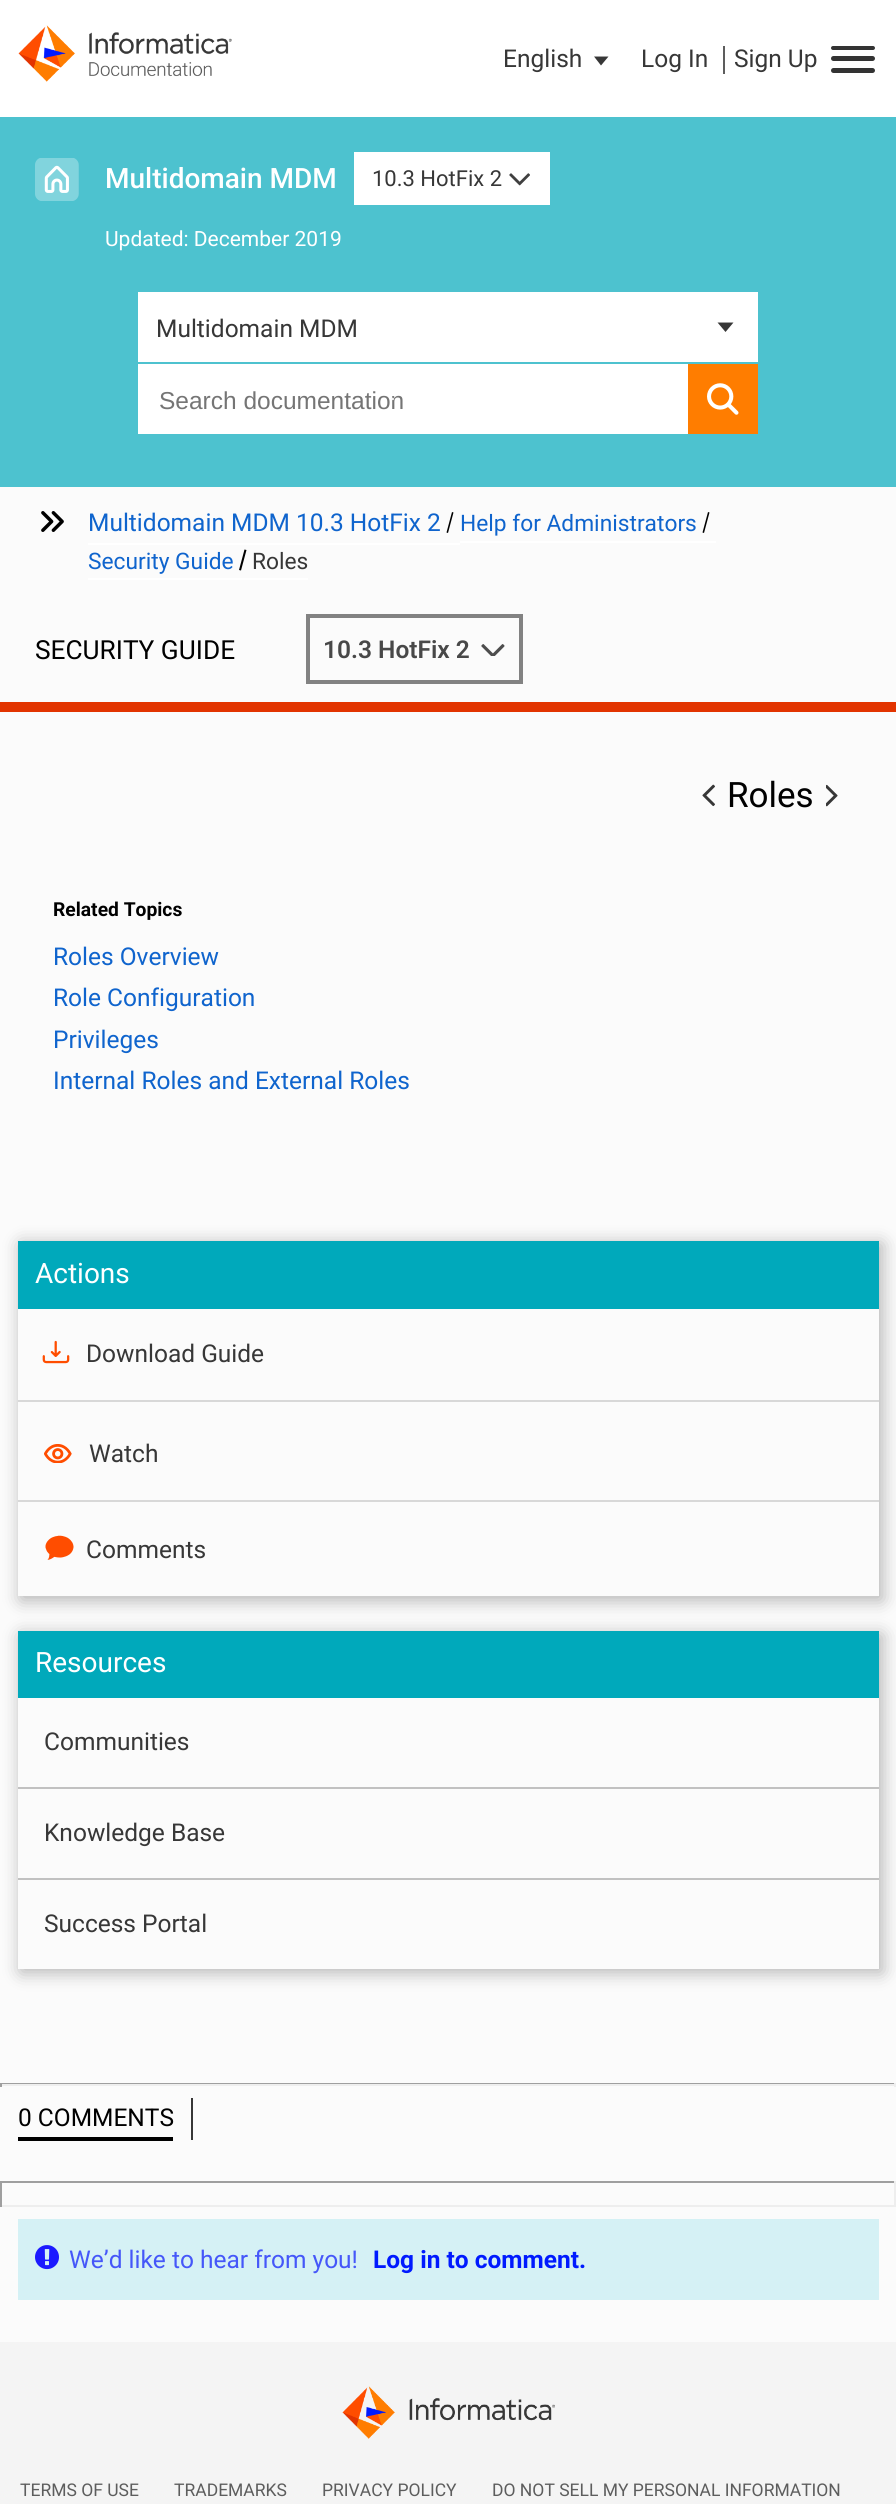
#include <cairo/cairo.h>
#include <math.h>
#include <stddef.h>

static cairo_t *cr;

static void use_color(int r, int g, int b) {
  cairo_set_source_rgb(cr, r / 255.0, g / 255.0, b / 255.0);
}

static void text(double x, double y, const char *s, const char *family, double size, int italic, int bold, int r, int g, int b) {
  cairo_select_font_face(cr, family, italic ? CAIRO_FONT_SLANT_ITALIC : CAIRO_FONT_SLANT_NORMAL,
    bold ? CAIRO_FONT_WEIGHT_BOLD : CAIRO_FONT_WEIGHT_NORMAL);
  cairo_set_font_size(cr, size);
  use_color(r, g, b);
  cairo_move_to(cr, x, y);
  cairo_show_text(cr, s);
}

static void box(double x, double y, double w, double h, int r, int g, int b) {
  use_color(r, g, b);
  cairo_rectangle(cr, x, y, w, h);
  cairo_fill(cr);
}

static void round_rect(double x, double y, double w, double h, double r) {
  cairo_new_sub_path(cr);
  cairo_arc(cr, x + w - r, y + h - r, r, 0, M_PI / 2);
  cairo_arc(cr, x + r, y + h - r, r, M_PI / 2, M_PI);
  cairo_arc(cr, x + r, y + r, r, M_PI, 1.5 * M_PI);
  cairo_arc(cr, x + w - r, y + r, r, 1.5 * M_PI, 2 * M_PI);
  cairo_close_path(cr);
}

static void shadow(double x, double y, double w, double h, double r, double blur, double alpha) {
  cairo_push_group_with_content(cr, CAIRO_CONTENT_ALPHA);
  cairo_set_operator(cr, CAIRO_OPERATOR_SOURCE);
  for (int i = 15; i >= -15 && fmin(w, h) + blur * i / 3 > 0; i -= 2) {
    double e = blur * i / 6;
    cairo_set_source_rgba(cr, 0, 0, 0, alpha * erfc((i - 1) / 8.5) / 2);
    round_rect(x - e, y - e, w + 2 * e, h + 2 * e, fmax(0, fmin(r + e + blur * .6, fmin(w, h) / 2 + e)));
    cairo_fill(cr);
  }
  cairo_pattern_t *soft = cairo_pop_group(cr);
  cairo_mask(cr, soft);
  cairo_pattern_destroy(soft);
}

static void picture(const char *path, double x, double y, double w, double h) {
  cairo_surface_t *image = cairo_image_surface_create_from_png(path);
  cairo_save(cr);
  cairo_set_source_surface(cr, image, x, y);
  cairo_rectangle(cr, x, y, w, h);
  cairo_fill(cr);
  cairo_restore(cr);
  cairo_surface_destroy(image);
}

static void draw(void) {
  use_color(255, 255, 255);
  cairo_paint(cr);
  picture("img_01.png", 18, 25, 214, 57);
  use_color(55, 55, 55);
  cairo_new_path(cr);
  cairo_move_to(cr, 608.5, 56.5);
  cairo_line_to(cr, 601, 65.5);
  cairo_line_to(cr, 594, 56.5);
  cairo_close_path(cr);
  cairo_fill(cr);
  box(723, 46, 2, 28, 93, 93, 93);
  use_color(51, 51, 51);
  round_rect(831, 46, 44, 4, 2);
  cairo_fill(cr);
  round_rect(831, 56, 44, 5, 2.5);
  cairo_fill(cr);
  round_rect(831, 68, 44, 5, 2.5);
  cairo_fill(cr);
  box(0, 117, 896, 370, 77, 194, 207);
  picture("img_02.png", 35, 158, 44, 43);
  box(354, 152, 196, 53, 255, 255, 255);
  picture("img_03.png", 509, 173, 21, 13);
  box(138, 292, 620, 70, 255, 255, 255);
  use_color(55, 55, 55);
  cairo_new_path(cr);
  cairo_move_to(cr, 733.5, 322.5);
  cairo_line_to(cr, 725.5, 332);
  cairo_line_to(cr, 717.5, 322.5);
  cairo_close_path(cr);
  cairo_fill(cr);
  box(138, 364, 550, 70, 255, 255, 255);
  box(688, 364, 70, 70, 255, 125, 0);
  picture("img_04.png", 707, 383, 32, 32);
  box(0, 487, 896, 1855, 251, 251, 251);
  picture("img_05.png", 41, 511, 23, 21);
  box(88, 543, 372, 2, 255, 255, 255);
  use_color(0, 0, 0);
  cairo_new_path(cr);
  cairo_move_to(cr, 452, 512);
  cairo_line_to(cr, 453.5, 512.5);
  cairo_line_to(cr, 448, 533);
  cairo_line_to(cr, 446.5, 532.5);
  cairo_close_path(cr);
  cairo_fill(cr);
  box(460, 541, 256, 2, 255, 255, 255);
  use_color(0, 0, 0);
  cairo_new_path(cr);
  cairo_move_to(cr, 708, 512);
  cairo_line_to(cr, 709.5, 512.5);
  cairo_line_to(cr, 704, 533);
  cairo_line_to(cr, 702.5, 532.5);
  cairo_close_path(cr);
  cairo_fill(cr);
  box(88, 578, 220, 2, 255, 255, 255);
  use_color(0, 0, 0);
  cairo_new_path(cr);
  cairo_move_to(cr, 244.5, 549.5);
  cairo_line_to(cr, 246.5, 550);
  cairo_line_to(cr, 241, 570.5);
  cairo_line_to(cr, 239, 570);
  cairo_close_path(cr);
  cairo_fill(cr);
  cairo_rectangle(cr, 308, 616, 213, 66);
  use_color(130, 130, 130);
  cairo_set_line_width(cr, 4);
  cairo_stroke(cr);
  picture("img_06.png", 481, 644, 24, 12);
  box(0, 702, 896, 10, 226, 52, 0);
  picture("img_07.png", 702, 784, 13, 23);
  picture("img_08.png", 826, 784, 12, 23);
  cairo_save(cr);
  cairo_set_fill_rule(cr, CAIRO_FILL_RULE_EVEN_ODD);
  cairo_new_path(cr);
  cairo_move_to(cr, 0, 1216);
  cairo_line_to(cr, 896, 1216);
  cairo_line_to(cr, 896, 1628);
  cairo_line_to(cr, 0, 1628);
  cairo_close_path(cr);
  cairo_move_to(cr, 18, 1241);
  cairo_line_to(cr, 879, 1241);
  cairo_line_to(cr, 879, 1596);
  cairo_line_to(cr, 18, 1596);
  cairo_close_path(cr);
  cairo_clip(cr);
  use_color(0, 0, 0);
  shadow(21, 1244, 861, 356, 0, 9, 0.3);
  cairo_restore(cr);
  box(18, 1241, 861, 68, 0, 169, 187);
  box(18, 1400, 861, 2, 216, 216, 216);
  picture("img_09.png", 42, 1340, 28, 24);
  box(18, 1500, 861, 2, 216, 216, 216);
  picture("img_10.png", 44, 1444, 28, 19);
  picture("img_11.png", 45, 1535, 29, 25);
  cairo_save(cr);
  cairo_set_fill_rule(cr, CAIRO_FILL_RULE_EVEN_ODD);
  cairo_new_path(cr);
  cairo_move_to(cr, 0, 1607);
  cairo_line_to(cr, 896, 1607);
  cairo_line_to(cr, 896, 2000);
  cairo_line_to(cr, 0, 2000);
  cairo_close_path(cr);
  cairo_move_to(cr, 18, 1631);
  cairo_line_to(cr, 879, 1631);
  cairo_line_to(cr, 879, 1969);
  cairo_line_to(cr, 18, 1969);
  cairo_close_path(cr);
  cairo_clip(cr);
  use_color(0, 0, 0);
  shadow(21, 1635, 861, 337, 0, 9, 0.3);
  cairo_restore(cr);
  box(18, 1631, 861, 67, 0, 169, 187);
  box(18, 1787, 861, 2, 193, 193, 193);
  box(18, 1878, 861, 2, 193, 193, 193);
  box(0, 2083, 896, 1, 159, 159, 159);
  box(894, 2083, 2, 4, 238, 238, 238);
  box(0, 2084, 896, 2, 238, 238, 238);
  box(0, 2083, 2, 4, 159, 159, 159);
  box(18, 2137, 155, 4, 0, 0, 0);
  box(191, 2098, 2, 42, 55, 55, 55);
  box(0, 2181, 896, 2, 159, 159, 159);
  box(894, 2181, 2, 26, 238, 238, 238);
  box(0, 2205, 896, 2, 238, 238, 238);
  box(0, 2181, 2, 26, 159, 159, 159);
  box(18, 2219, 861, 81, 213, 241, 245);
  picture("img_12.png", 35, 2245, 24, 25);
  box(0, 2342, 896, 162, 244, 244, 244);
  picture("img_13.png", 342, 2386, 213, 53);
  text(503, 67, "English", "Roboto", 24.5, 0, 0, 55, 55, 55);
  text(641, 67, "Log In", "Roboto", 24.5, 0, 0, 55, 55, 55);
  text(734, 67, "Sign Up", "Roboto", 24.5, 0, 0, 55, 55, 55);
  text(105, 188, "Multidomain MDM", "Roboto Medium", 28, 0, 0, 255, 255, 255);
  text(372, 186, "10.3 HotFix 2", "Roboto", 22, 0, 0, 55, 55, 55);
  text(105, 246, "Updated: December 2019", "Roboto", 21, 0, 0, 255, 255, 255);
  text(156, 337, "Multidomain MDM", "Roboto", 24.5, 0, 0, 55, 55, 55);
  text(159, 409, "Search documentation", "Liberation Sans", 24.5, 0, 0, 117, 117, 117);
  text(390, 400, ".", "Roboto", 22, 0, 0, 243, 243, 243);
  text(88, 531, "Multidomain MDM 10.3 HotFix 2", "Roboto", 24.5, 0, 0, 15, 100, 205);
  text(460, 531, "Help for Administrators", "Roboto", 22.75, 0, 0, 15, 100, 205);
  text(88, 569, "Security Guide", "Roboto", 22.75, 0, 0, 15, 100, 205);
  text(252, 569, "Roles", "Roboto", 22.75, 0, 0, 55, 55, 55);
  text(35, 659, "SECURITY GUIDE", "Roboto", 26.25, 0, 0, 0, 0, 0);
  text(323, 658, "10.3 HotFix 2", "Roboto SemiBold", 24.5, 0, 0, 72, 72, 72);
  text(727, 807, "Roles", "Roboto", 35, 0, 0, 0, 0, 0);
  text(53, 916, "Related Topics", "Roboto", 19.25, 0, 1, 0, 0, 0);
  text(53, 965, "Roles Overview", "Roboto", 24.5, 0, 0, 15, 100, 205);
  text(53, 1006, "Role Configuration", "Roboto", 24.5, 0, 0, 15, 100, 205);
  text(53, 1048, "Privileges", "Roboto", 24.5, 0, 0, 15, 100, 205);
  text(53, 1089, "Internal Roles and External Roles", "Roboto", 24.5, 0, 0, 15, 100, 205);
  text(35, 1283, "Actions", "Roboto", 28, 0, 0, 255, 255, 255);
  text(86, 1362, "Download Guide", "Roboto", 24.5, 0, 0, 55, 55, 55);
  text(89, 1462, "Watch", "Roboto", 24.5, 0, 0, 55, 55, 55);
  text(86, 1558, "Comments", "Roboto", 24.5, 0, 0, 55, 55, 55);
  text(35, 1672, "Resources", "Roboto", 28, 0, 0, 255, 255, 255);
  text(44, 1750, "Communities", "Roboto", 24.5, 0, 0, 55, 55, 55);
  text(44, 1841, "Knowledge Base", "Roboto", 24.5, 0, 0, 55, 55, 55);
  text(44, 1932, "Success Portal", "Roboto", 24.5, 0, 0, 55, 55, 55);
  text(18, 2126, "0 COMMENTS", "Roboto", 24.5, 0, 0, 0, 0, 0);
  text(69, 2268, "We’d like to hear from you!", "Roboto", 24.5, 0, 0, 69, 87, 249);
  text(373, 2268, "Log in to comment.", "Roboto", 24.5, 0, 1, 0, 26, 255);
  text(20, 2496, "TERMS OF USE", "Roboto", 17.5, 0, 0, 93, 93, 93);
  text(174, 2496, "TRADEMARKS", "Roboto", 17.5, 0, 0, 93, 93, 93);
  text(322, 2496, "PRIVACY POLICY", "Roboto", 17.5, 0, 0, 93, 93, 93);
  text(492, 2496, "DO NOT SELL MY PERSONAL INFORMATION", "Roboto", 17.5, 0, 0, 93, 93, 93);
}

int main(void) {
  cairo_surface_t *surface = cairo_image_surface_create(CAIRO_FORMAT_RGB24, 896, 2504);
  cr = cairo_create(surface);
  cairo_font_options_t *options = cairo_font_options_create();
  cairo_font_options_set_hint_metrics(options, CAIRO_HINT_METRICS_OFF);
  cairo_font_options_set_hint_style(options, CAIRO_HINT_STYLE_NONE);
  cairo_set_font_options(cr, options);
  cairo_set_miter_limit(cr, 4);
  draw();
  cairo_surface_write_to_png(surface, "out.png");
  cairo_font_options_destroy(options);
  cairo_destroy(cr);
  cairo_surface_destroy(surface);
  return 0;
}
